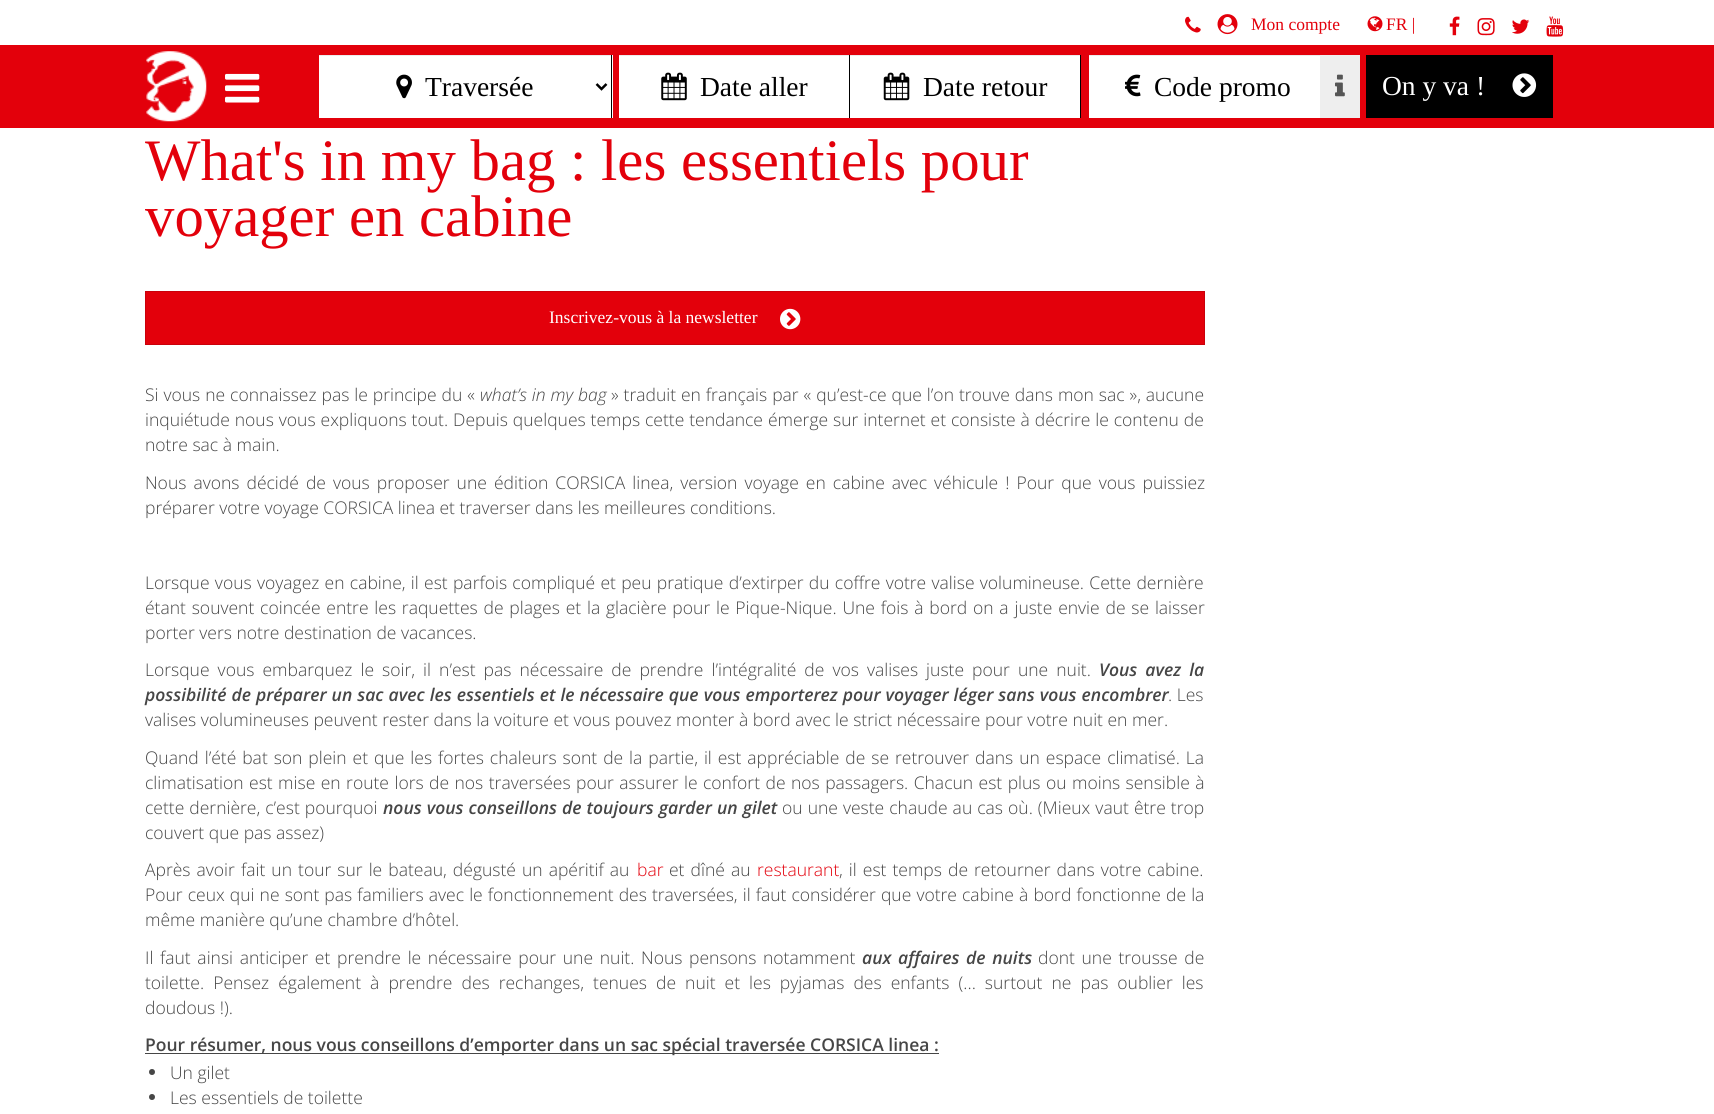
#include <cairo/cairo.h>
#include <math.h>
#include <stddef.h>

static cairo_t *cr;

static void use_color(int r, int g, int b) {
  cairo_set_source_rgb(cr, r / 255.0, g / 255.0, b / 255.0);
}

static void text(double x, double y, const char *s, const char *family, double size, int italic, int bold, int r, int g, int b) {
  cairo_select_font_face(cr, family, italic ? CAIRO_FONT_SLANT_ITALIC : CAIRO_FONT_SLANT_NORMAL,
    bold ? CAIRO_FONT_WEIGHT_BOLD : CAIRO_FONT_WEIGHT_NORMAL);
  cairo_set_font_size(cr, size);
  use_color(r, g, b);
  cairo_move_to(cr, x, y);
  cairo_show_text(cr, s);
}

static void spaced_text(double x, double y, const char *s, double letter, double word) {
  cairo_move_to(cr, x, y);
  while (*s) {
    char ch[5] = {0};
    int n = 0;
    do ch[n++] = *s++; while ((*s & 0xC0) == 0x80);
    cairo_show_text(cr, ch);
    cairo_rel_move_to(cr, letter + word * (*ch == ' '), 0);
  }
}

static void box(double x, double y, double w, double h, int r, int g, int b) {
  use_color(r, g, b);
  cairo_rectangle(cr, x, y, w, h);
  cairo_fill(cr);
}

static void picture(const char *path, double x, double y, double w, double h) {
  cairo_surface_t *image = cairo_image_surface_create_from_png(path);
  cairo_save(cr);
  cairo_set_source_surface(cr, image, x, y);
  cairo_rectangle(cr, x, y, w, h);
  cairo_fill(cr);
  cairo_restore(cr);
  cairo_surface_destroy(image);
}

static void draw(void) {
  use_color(255, 255, 255);
  cairo_paint(cr);
  picture("img_01.png", 1185, 16, 16, 17);
  picture("img_02.png", 1217, 14, 21, 21);
  picture("img_03.png", 1367, 16, 16, 16);
  picture("img_04.png", 1449, 16, 11, 20);
  picture("img_05.png", 1477, 18, 18, 18);
  picture("img_06.png", 1512, 19, 18, 15);
  picture("img_07.png", 1546, 16, 18, 21);
  box(0, 45, 1714, 83, 227, 0, 11);
  picture("img_08.png", 146, 51, 61, 71);
  picture("img_09.png", 225, 73, 35, 30);
  box(319, 55, 294, 63, 255, 255, 255);
  box(319, 55, 292, 1, 236, 236, 236);
  box(611, 55, 1, 63, 0, 0, 0);
  cairo_new_path(cr);
  cairo_move_to(cr, 596.5, 84);
  cairo_line_to(cr, 601.5, 89);
  cairo_line_to(cr, 606.5, 84);
  cairo_set_line_width(cr, 2.5);
  cairo_stroke(cr);
  picture("img_10.png", 396, 74, 16, 25);
  box(619, 56, 230, 62, 255, 255, 255);
  box(619, 55, 230, 1, 236, 236, 236);
  box(849, 55, 1, 63, 0, 0, 0);
  picture("img_11.png", 661, 72, 26, 29);
  box(850, 56, 230, 62, 255, 255, 255);
  box(850, 55, 230, 1, 236, 236, 236);
  box(1080, 55, 1, 63, 0, 0, 0);
  picture("img_12.png", 883, 72, 27, 29);
  box(1089, 56, 231, 62, 255, 255, 255);
  box(1089, 55, 231, 1, 236, 236, 236);
  picture("img_13.png", 1125, 74, 16, 23);
  box(1320, 55, 40, 63, 238, 238, 238);
  picture("img_14.png", 1335, 74, 10, 23);
  box(1366, 55, 187, 63, 0, 0, 0);
  picture("img_15.png", 1512, 73, 25, 24);
  use_color(227, 0, 11);
  cairo_rectangle(cr, 145.5, 291.5, 1059, 53);
  cairo_fill_preserve(cr);
  use_color(202, 0, 10);
  cairo_set_line_width(cr, 1);
  cairo_stroke(cr);
  picture("img_16.png", 780, 308, 21, 22);
  box(145, 1053, 794, 1, 70, 70, 70);
  cairo_arc(cr, 152, 1072, 3, 0, 2 * M_PI);
  cairo_fill(cr);
  cairo_arc(cr, 152, 1097, 3, 0, 2 * M_PI);
  cairo_fill(cr);
  text(1251, 30, "Mon compte", "Liberation Serif", 17.5, 0, 0, 227, 0, 11);
  text(1386, 30, "FR |", "Liberation Serif", 17.5, 0, 0, 227, 0, 11);
  text(425, 96, "Traversée", "Liberation Serif", 27.5, 0, 0, 0, 0, 0);
  text(700, 96, "Date aller", "Liberation Serif", 27.5, 0, 0, 0, 0, 0);
  text(923, 96, "Date retour", "Liberation Serif", 27.5, 0, 0, 0, 0, 0);
  text(1154, 96, "Code promo", "Liberation Serif", 27.5, 0, 0, 0, 0, 0);
  text(1382, 95, "On y va !", "Liberation Serif", 27.5, 0, 0, 255, 255, 255);
  text(145, 180, "What's in my bag : les essentiels pour", "Liberation Serif", 58.75, 0, 0, 227, 0, 11);
  text(145, 236, "voyager en cabine", "Liberation Serif", 58.75, 0, 0, 227, 0, 11);
  text(549, 323, "Inscrivez-vous à la newsletter", "Liberation Serif", 17.5, 0, 0, 255, 255, 255);
  cairo_select_font_face(cr, "Open Sans Light", CAIRO_FONT_SLANT_NORMAL, CAIRO_FONT_WEIGHT_NORMAL);
  use_color(70, 70, 70);
  spaced_text(145, 401, "Si vous ne connaissez pas le principe du «", 0, 0.4);
  cairo_select_font_face(cr, "Open Sans Light", CAIRO_FONT_SLANT_ITALIC, CAIRO_FONT_WEIGHT_NORMAL);
  spaced_text(480, 401, "what’s in my bag", 0, 0.4);
  cairo_select_font_face(cr, "Open Sans Light", CAIRO_FONT_SLANT_NORMAL, CAIRO_FONT_WEIGHT_NORMAL);
  spaced_text(611, 401, "» traduit en français par « qu’est-ce que l’on trouve dans mon sac », aucune", 0, 0.4);
  spaced_text(145, 426, "inquiétude nous vous expliquons tout. Depuis quelques temps cette tendance émerge sur internet et consiste à décrire le contenu de", 0, 0.4);
  text(145, 451, "notre sac à main.", "Open Sans Light", 17.5, 0, 0, 70, 70, 70);
  spaced_text(145, 489, "Nous avons décidé de vous proposer une édition CORSICA linea, version voyage en cabine avec véhicule ! Pour que vous puissiez", 0, 2.5);
  text(145, 514, "préparer votre voyage CORSICA linea et traverser dans les meilleures conditions.", "Open Sans Light", 17.5, 0, 0, 70, 70, 70);
  spaced_text(145, 589, "Lorsque vous voyagez en cabine, il est parfois compliqué et peu pratique d’extirper du coffre votre valise volumineuse. Cette dernière", 0, 0.75);
  spaced_text(145, 614, "étant souvent coincée entre les raquettes de plages et la glacière pour le Pique-Nique. Une fois à bord on a juste envie de se laisser", 0, 1.25);
  text(145, 639, "porter vers notre destination de vacances.", "Open Sans Light", 17.5, 0, 0, 70, 70, 70);
  spaced_text(145, 676, "Lorsque vous embarquez le soir, il n’est pas nécessaire de prendre l’intégralité de vos valises juste pour une nuit.", 0, 3.5);
  cairo_select_font_face(cr, "Open Sans SemiBold", CAIRO_FONT_SLANT_ITALIC, CAIRO_FONT_WEIGHT_NORMAL);
  spaced_text(1099, 676, "Vous avez la", 0, 3.5);
  spaced_text(145, 701, "possibilité de préparer un sac avec les essentiels et le nécessaire que vous emporterez pour voyager léger sans vous encombrer", 0, 0.5);
  text(1168, 701, ". Les", "Open Sans Light", 17.5, 0, 0, 70, 70, 70);
  text(145, 726, "valises volumineuses peuvent rester dans la voiture et vous pouvez monter à bord avec le strict nécessaire pour votre nuit en mer.", "Open Sans Light", 17.5, 0, 0, 70, 70, 70);
  spaced_text(145, 764, "Quand l’été bat son plein et que les fortes chaleurs sont de la partie, il est appréciable de se retrouver dans un espace climatisé. La", 0, 1.4);
  spaced_text(145, 789, "climatisation est mise en route lors de nos traversées pour assurer le confort de nos passagers. Chacun est plus ou moins sensible à", 0, 0.9);
  spaced_text(145, 814, "cette dernière, c’est pourquoi", 0, 0.5);
  cairo_select_font_face(cr, "Open Sans SemiBold", CAIRO_FONT_SLANT_ITALIC, CAIRO_FONT_WEIGHT_NORMAL);
  spaced_text(383, 814, "nous vous conseillons de toujours garder un gilet", 0, 0.5);
  cairo_select_font_face(cr, "Open Sans Light", CAIRO_FONT_SLANT_NORMAL, CAIRO_FONT_WEIGHT_NORMAL);
  spaced_text(782, 814, "ou une veste chaude au cas où. (Mieux vaut être trop", 0, 0.5);
  text(145, 839, "couvert que pas assez)", "Open Sans Light", 17.5, 0, 0, 70, 70, 70);
  spaced_text(145, 876, "Après avoir fait un tour sur le bateau, dégusté un apéritif au", 0, 1.5);
  text(637, 876, "bar", "Open Sans Light", 17.5, 0, 0, 227, 0, 11);
  use_color(70, 70, 70);
  spaced_text(669, 876, "et dîné au", 0, 1.5);
  text(757, 876, "restaurant", "Open Sans Light", 17.5, 0, 0, 227, 0, 11);
  use_color(70, 70, 70);
  spaced_text(839, 876, ", il est temps de retourner dans votre cabine.", 0, 1.5);
  spaced_text(145, 901, "Pour ceux qui ne sont pas familiers avec le fonctionnement des traversées, il faut considérer que votre cabine à bord fonctionne de la", 0, 0.55);
  text(145, 926, "même manière qu’une chambre d’hôtel.", "Open Sans Light", 17.5, 0, 0, 70, 70, 70);
  spaced_text(145, 964, "Il faut ainsi anticiper et prendre le nécessaire pour une nuit. Nous pensons notamment", 0, 2.1);
  cairo_select_font_face(cr, "Open Sans SemiBold", CAIRO_FONT_SLANT_ITALIC, CAIRO_FONT_WEIGHT_NORMAL);
  spaced_text(862, 964, "aux affaires de nuits", 0, 2.1);
  cairo_select_font_face(cr, "Open Sans Light", CAIRO_FONT_SLANT_NORMAL, CAIRO_FONT_WEIGHT_NORMAL);
  spaced_text(1038, 964, "dont une trousse de", 0, 2.1);
  spaced_text(145, 989, "toilette. Pensez également à prendre des rechanges, tenues de nuit et les pyjamas des enfants (... surtout ne pas oublier les", 0, 4.5);
  text(145, 1014, "doudous !).", "Open Sans Light", 17.5, 0, 0, 70, 70, 70);
  text(145, 1051, "Pour résumer, nous vous conseillons d’emporter dans un sac spécial traversée CORSICA linea :", "Open Sans SemiBold", 17.5, 0, 0, 70, 70, 70);
  text(170, 1079, "Un gilet", "Open Sans Light", 17.5, 0, 0, 70, 70, 70);
  text(170, 1104, "Les essentiels de toilette", "Open Sans Light", 17.5, 0, 0, 70, 70, 70);
}

int main(void) {
  cairo_surface_t *surface = cairo_image_surface_create(CAIRO_FORMAT_RGB24, 1714, 1114);
  cr = cairo_create(surface);
  cairo_font_options_t *options = cairo_font_options_create();
  cairo_font_options_set_hint_metrics(options, CAIRO_HINT_METRICS_OFF);
  cairo_font_options_set_hint_style(options, CAIRO_HINT_STYLE_NONE);
  cairo_set_font_options(cr, options);
  cairo_set_miter_limit(cr, 4);
  draw();
  cairo_surface_write_to_png(surface, "out.png");
  cairo_font_options_destroy(options);
  cairo_destroy(cr);
  cairo_surface_destroy(surface);
  return 0;
}
